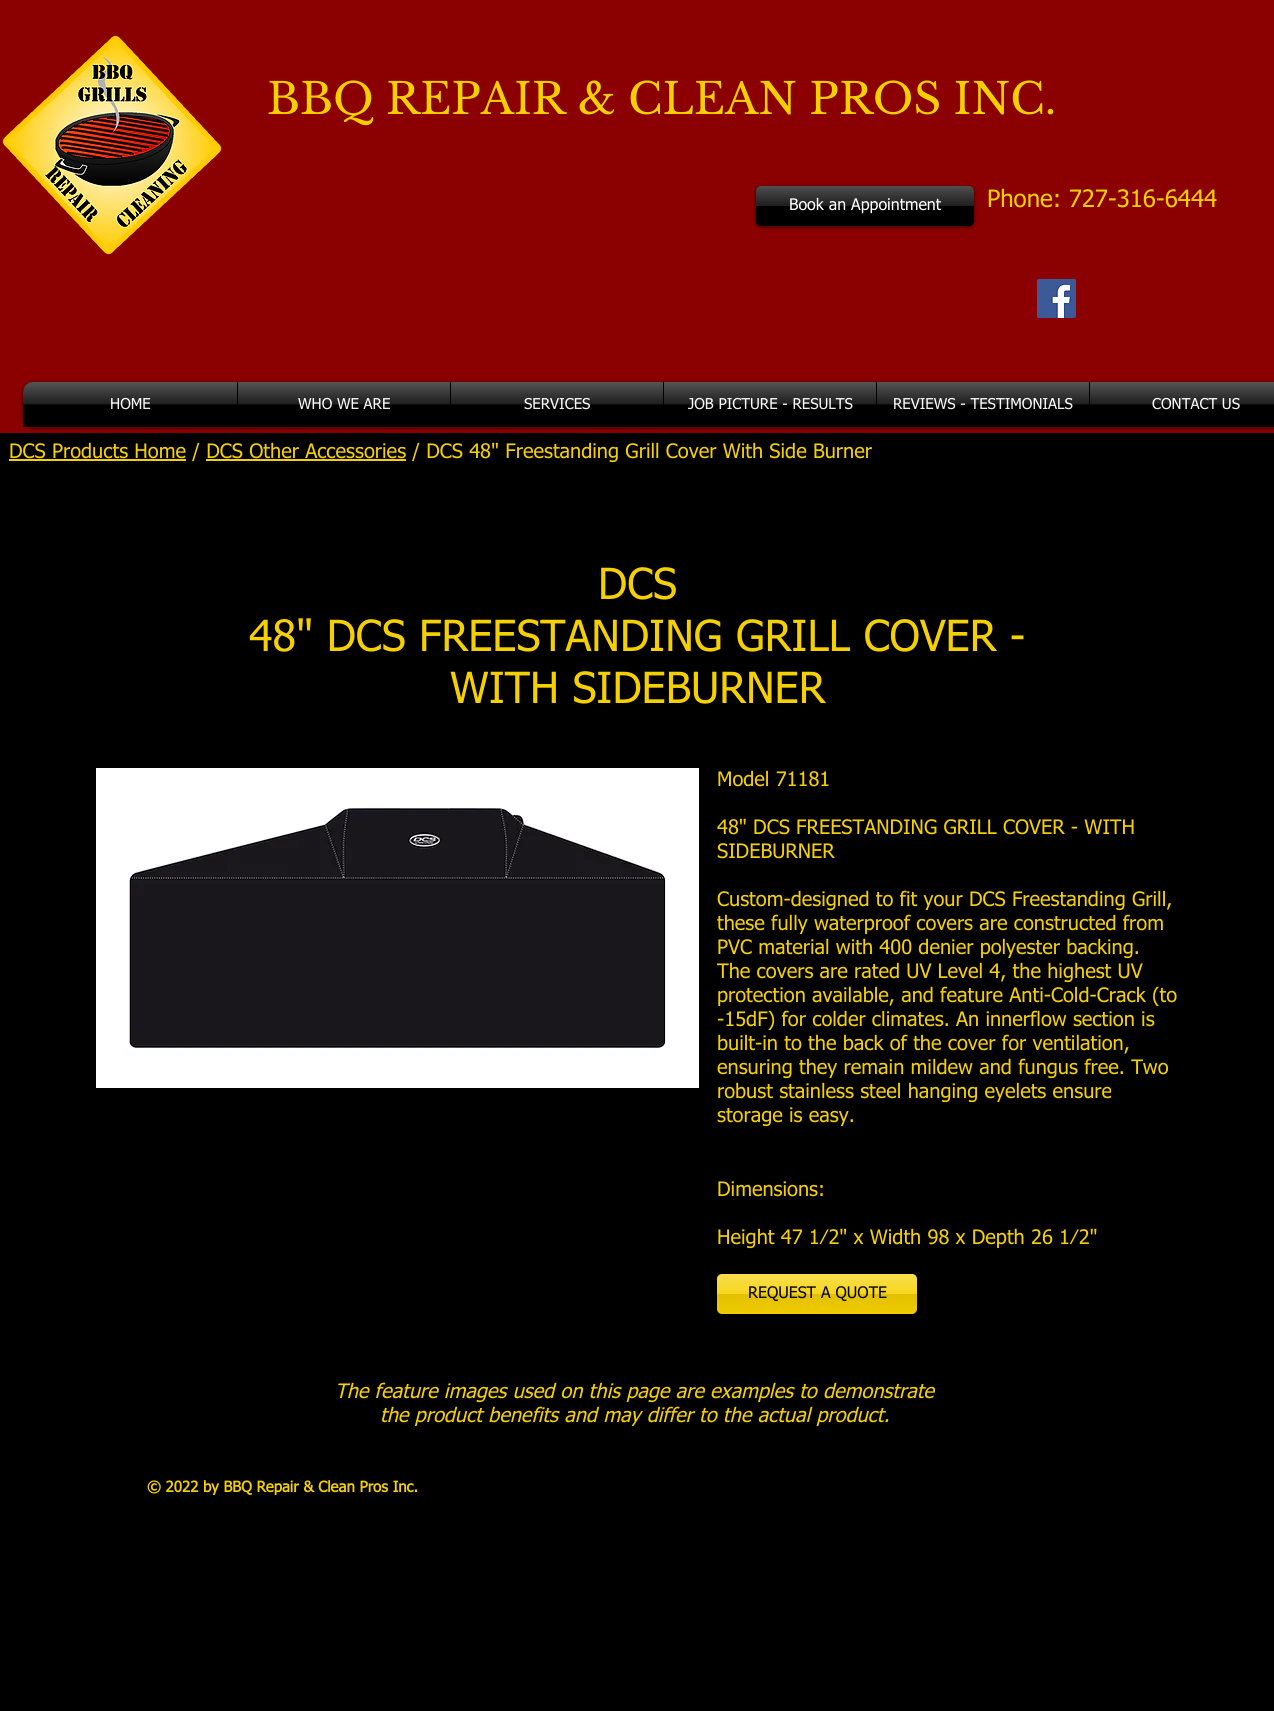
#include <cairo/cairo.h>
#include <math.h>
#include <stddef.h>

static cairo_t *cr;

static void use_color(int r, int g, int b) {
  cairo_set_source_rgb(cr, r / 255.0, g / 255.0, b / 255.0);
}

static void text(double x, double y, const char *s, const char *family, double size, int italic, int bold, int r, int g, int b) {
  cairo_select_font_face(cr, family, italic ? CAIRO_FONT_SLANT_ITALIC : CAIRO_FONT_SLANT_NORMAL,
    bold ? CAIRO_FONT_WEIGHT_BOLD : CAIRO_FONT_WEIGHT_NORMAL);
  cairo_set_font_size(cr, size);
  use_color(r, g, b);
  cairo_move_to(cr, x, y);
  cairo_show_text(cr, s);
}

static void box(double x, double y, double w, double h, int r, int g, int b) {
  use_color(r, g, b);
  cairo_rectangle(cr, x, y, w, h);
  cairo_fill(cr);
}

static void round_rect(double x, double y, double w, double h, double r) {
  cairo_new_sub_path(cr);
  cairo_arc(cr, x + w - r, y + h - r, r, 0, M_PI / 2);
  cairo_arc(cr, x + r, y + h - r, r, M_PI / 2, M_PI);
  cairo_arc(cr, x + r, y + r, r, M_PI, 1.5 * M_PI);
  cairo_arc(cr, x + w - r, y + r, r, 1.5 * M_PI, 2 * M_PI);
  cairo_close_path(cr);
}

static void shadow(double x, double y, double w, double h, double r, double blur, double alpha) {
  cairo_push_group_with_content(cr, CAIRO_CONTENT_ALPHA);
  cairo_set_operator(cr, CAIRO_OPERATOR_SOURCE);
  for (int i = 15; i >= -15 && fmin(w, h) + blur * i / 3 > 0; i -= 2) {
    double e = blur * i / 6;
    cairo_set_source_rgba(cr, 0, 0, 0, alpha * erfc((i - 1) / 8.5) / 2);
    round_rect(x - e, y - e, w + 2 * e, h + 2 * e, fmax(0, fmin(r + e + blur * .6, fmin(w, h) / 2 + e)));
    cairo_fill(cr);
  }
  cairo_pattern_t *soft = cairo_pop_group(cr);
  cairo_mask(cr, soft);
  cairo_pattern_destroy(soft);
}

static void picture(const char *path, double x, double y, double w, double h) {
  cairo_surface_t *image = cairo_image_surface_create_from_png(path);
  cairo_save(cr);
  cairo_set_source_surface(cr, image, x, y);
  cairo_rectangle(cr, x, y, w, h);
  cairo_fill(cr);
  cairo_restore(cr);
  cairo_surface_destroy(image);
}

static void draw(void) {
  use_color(0, 0, 0);
  cairo_paint(cr);
  box(0, 0, 1274, 433, 139, 0, 0);
  picture("img_01.png", 2, 35, 220, 220);
  use_color(0, 0, 0);
  shadow(756, 187, 218, 40, 5, 2, 0.6);
  use_color(0, 0, 0);
  round_rect(756, 186, 218, 40, 5);
  cairo_fill(cr);
  picture("img_02.png", 756, 186, 218, 20);
  picture("img_03.png", 1037, 279, 39, 39);
  use_color(0, 0, 0);
  shadow(23, 383, 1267, 45, 10, 2, 0.6);
  picture("img_04.png", 23, 382, 10, 10);
  use_color(0, 0, 0);
  cairo_new_path(cr);
  cairo_move_to(cr, 33, 382);
  cairo_line_to(cr, 237, 382);
  cairo_line_to(cr, 237, 427);
  cairo_line_to(cr, 23, 427);
  cairo_line_to(cr, 23, 392);
  cairo_curve_to(cr, 23, 386.5, 27.5, 382, 33, 382);
  cairo_close_path(cr);
  cairo_fill(cr);
  box(237, 382, 1037, 45, 0, 0, 0);
  box(9, 459, 177, 2, 245, 208, 0);
  box(206, 459, 200, 2, 245, 208, 0);
  picture("img_11.png", 96, 768, 603, 320);
  round_rect(717, 1274, 200, 40, 5);
  cairo_fill(cr);
  picture("img_12.png", 717, 1274, 200, 40);
  text(267, 114, "BBQ REPAIR & CLEAN PROS INC.", "Libre Baskerville", 43, 0, 0, 245, 208, 0);
  text(789, 210, "Book an Appointment", "tahoma", 16, 0, 0, 255, 255, 255);
  text(987, 207, "Phone: 727-316-6444", "tahoma", 24, 0, 0, 245, 208, 0);
  text(110, 409, "HOME", "tahoma", 15, 0, 0, 255, 255, 255);
  picture("img_05.png", 23, 382, 214, 27);
  text(298, 409, "WHO WE ARE", "tahoma", 15, 0, 0, 255, 255, 255);
  picture("img_06.png", 238, 382, 212, 27);
  text(524, 409, "SERVICES", "tahoma", 15, 0, 0, 255, 255, 255);
  picture("img_07.png", 451, 382, 212, 27);
  text(688, 409, "JOB PICTURE - RESULTS", "tahoma", 15, 0, 0, 255, 255, 255);
  picture("img_08.png", 664, 382, 212, 27);
  text(893, 409, "REVIEWS - TESTIMONIALS", "tahoma", 15, 0, 0, 255, 255, 255);
  picture("img_09.png", 877, 382, 212, 27);
  text(1152, 409, "CONTACT US", "tahoma", 15, 0, 0, 255, 255, 255);
  picture("img_10.png", 1090, 382, 184, 27);
  text(9, 458, "DCS Products Home / DCS Other Accessories / DCS 48\" Freestanding Grill Cover With Side Burner", "tahoma", 20, 0, 0, 245, 208, 0);
  text(598, 599, "DCS", "tahoma", 43, 0, 0, 245, 208, 0);
  text(249, 651, "48\" DCS FREESTANDING GRILL COVER -", "tahoma", 43, 0, 0, 245, 208, 0);
  text(450, 703, "WITH SIDEBURNER", "tahoma", 43, 0, 0, 245, 208, 0);
  text(717, 786, "Model 71181", "tahoma", 20, 0, 0, 245, 208, 0);
  text(717, 834, "48\" DCS FREESTANDING GRILL COVER - WITH", "tahoma", 20, 0, 0, 245, 208, 0);
  text(717, 858, "SIDEBURNER", "tahoma", 20, 0, 0, 245, 208, 0);
  text(717, 906, "Custom-designed to fit your DCS Freestanding Grill,", "tahoma", 20, 0, 0, 245, 208, 0);
  text(717, 930, "these fully waterproof covers are constructed from", "tahoma", 20, 0, 0, 245, 208, 0);
  text(717, 954, "PVC material with 400 denier polyester backing.", "tahoma", 20, 0, 0, 245, 208, 0);
  text(717, 978, "The covers are rated UV Level 4, the highest UV", "tahoma", 20, 0, 0, 245, 208, 0);
  text(717, 1002, "protection available, and feature Anti-Cold-Crack (to", "tahoma", 20, 0, 0, 245, 208, 0);
  text(717, 1026, "-15dF) for colder climates. An innerflow section is", "tahoma", 20, 0, 0, 245, 208, 0);
  text(717, 1050, "built-in to the back of the cover for ventilation,", "tahoma", 20, 0, 0, 245, 208, 0);
  text(717, 1074, "ensuring they remain mildew and fungus free. Two", "tahoma", 20, 0, 0, 245, 208, 0);
  text(717, 1098, "robust stainless steel hanging eyelets ensure", "tahoma", 20, 0, 0, 245, 208, 0);
  text(717, 1122, "storage is easy.", "tahoma", 20, 0, 0, 245, 208, 0);
  text(717, 1196, "Dimensions:", "tahoma", 20, 0, 0, 245, 208, 0);
  text(717, 1244, "Height 47 1⁄2\" x Width 98 x Depth 26 1⁄2\"", "tahoma", 20, 0, 0, 245, 208, 0);
  text(748, 1298, "REQUEST A QUOTE", "tahoma", 16, 0, 0, 0, 0, 0);
  text(335, 1398, "The feature images used on this page are examples to demonstrate", "tahoma", 20, 1, 0, 245, 208, 0);
  text(380, 1422, "the product benefits and may differ to the actual product.", "tahoma", 20, 1, 0, 245, 208, 0);
  text(147, 1492, "© 2022 by BBQ Repair & Clean Pros Inc.", "tahoma", 15, 0, 1, 245, 208, 0);
}

int main(void) {
  cairo_surface_t *surface = cairo_image_surface_create(CAIRO_FORMAT_RGB24, 1274, 1711);
  cr = cairo_create(surface);
  cairo_font_options_t *options = cairo_font_options_create();
  cairo_font_options_set_hint_metrics(options, CAIRO_HINT_METRICS_OFF);
  cairo_font_options_set_hint_style(options, CAIRO_HINT_STYLE_NONE);
  cairo_set_font_options(cr, options);
  cairo_set_miter_limit(cr, 4);
  draw();
  cairo_surface_write_to_png(surface, "out.png");
  cairo_font_options_destroy(options);
  cairo_destroy(cr);
  cairo_surface_destroy(surface);
  return 0;
}
